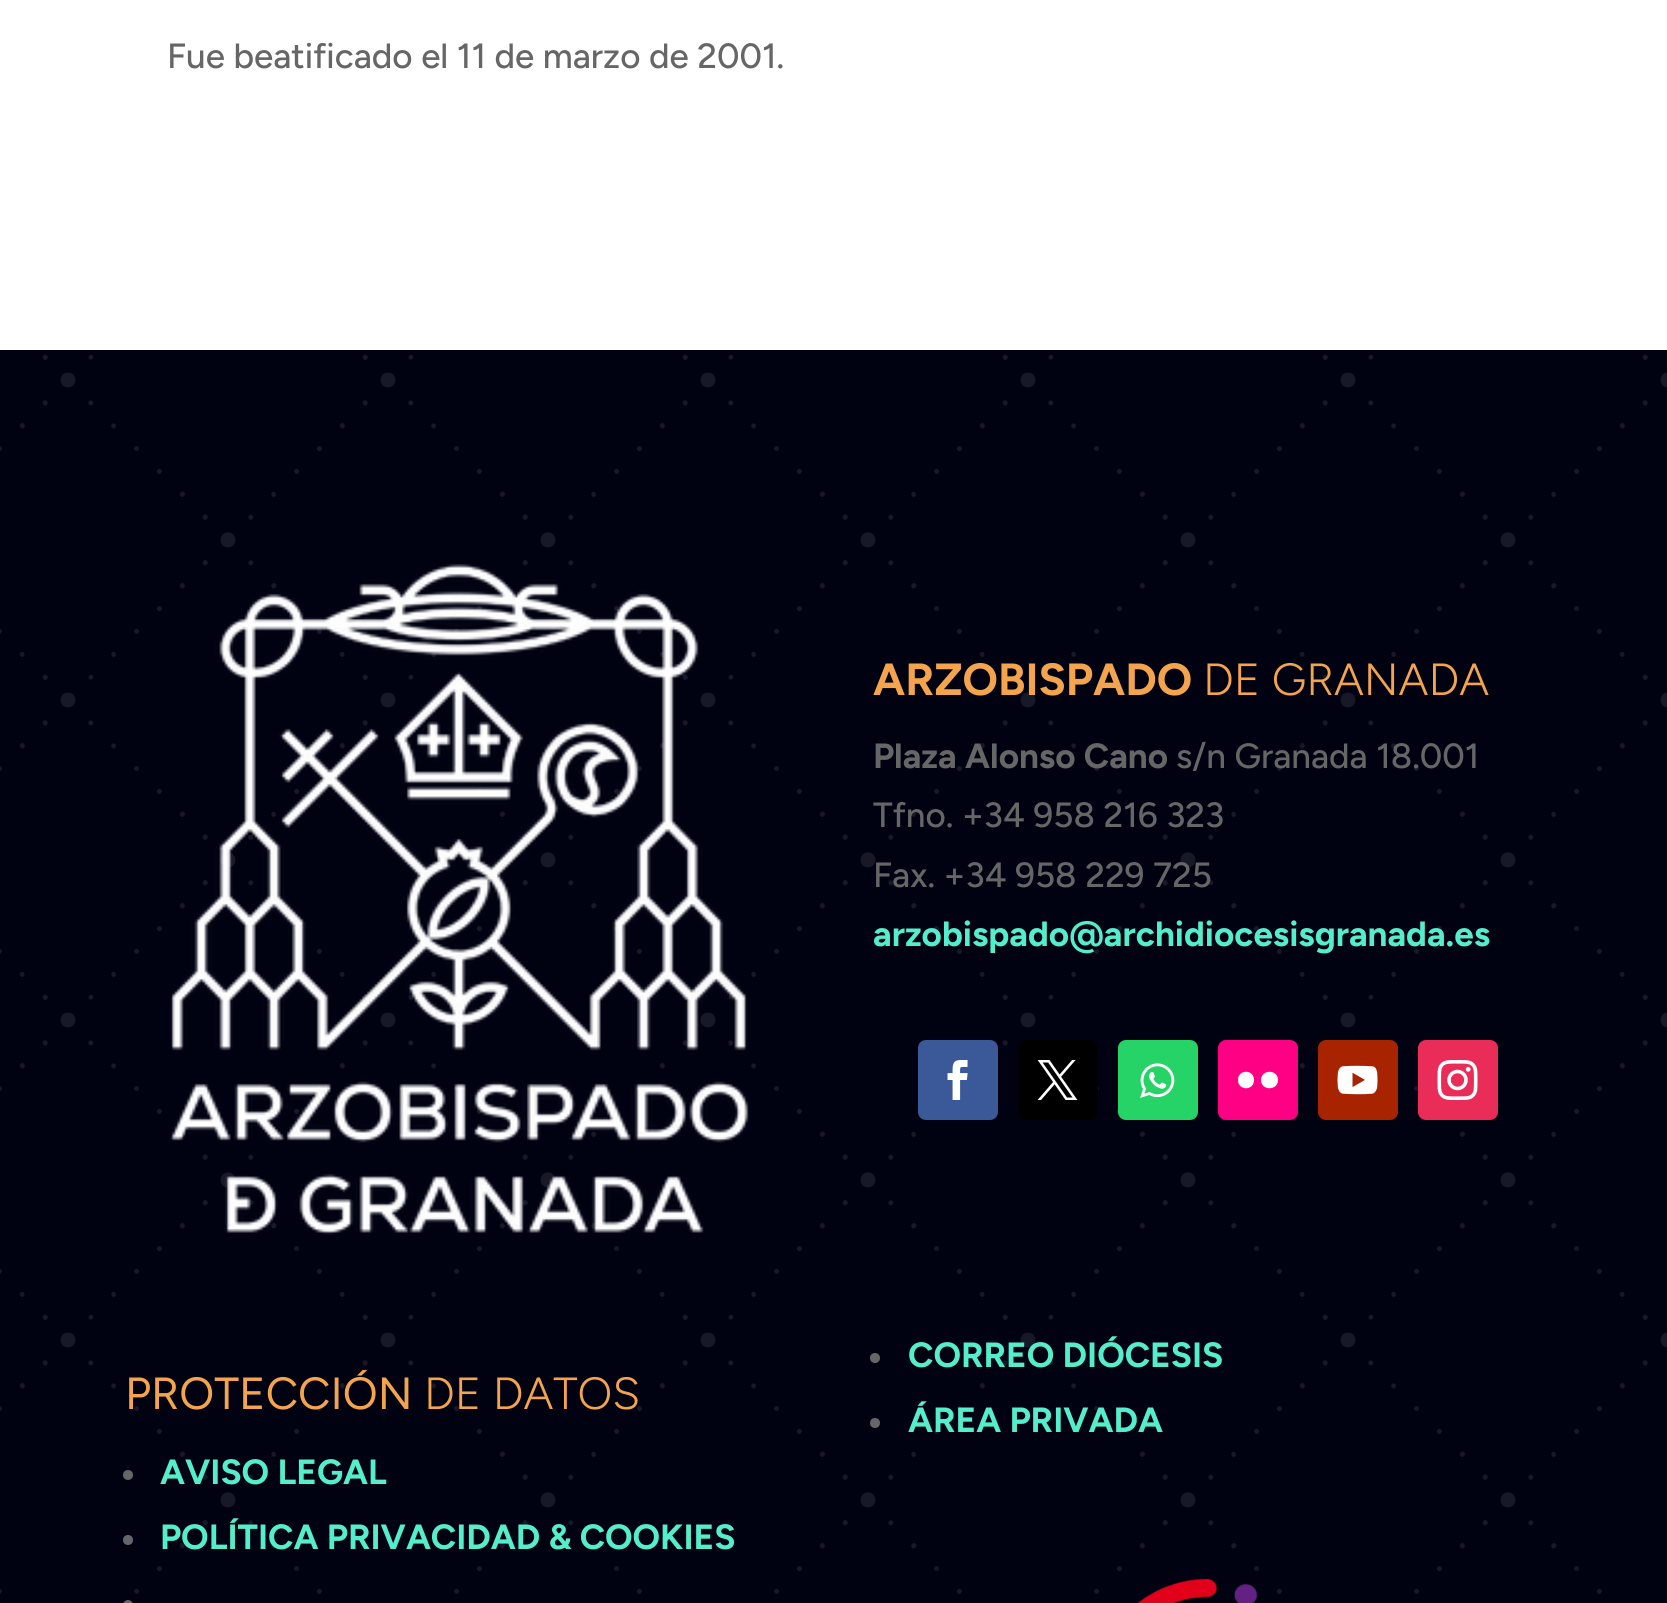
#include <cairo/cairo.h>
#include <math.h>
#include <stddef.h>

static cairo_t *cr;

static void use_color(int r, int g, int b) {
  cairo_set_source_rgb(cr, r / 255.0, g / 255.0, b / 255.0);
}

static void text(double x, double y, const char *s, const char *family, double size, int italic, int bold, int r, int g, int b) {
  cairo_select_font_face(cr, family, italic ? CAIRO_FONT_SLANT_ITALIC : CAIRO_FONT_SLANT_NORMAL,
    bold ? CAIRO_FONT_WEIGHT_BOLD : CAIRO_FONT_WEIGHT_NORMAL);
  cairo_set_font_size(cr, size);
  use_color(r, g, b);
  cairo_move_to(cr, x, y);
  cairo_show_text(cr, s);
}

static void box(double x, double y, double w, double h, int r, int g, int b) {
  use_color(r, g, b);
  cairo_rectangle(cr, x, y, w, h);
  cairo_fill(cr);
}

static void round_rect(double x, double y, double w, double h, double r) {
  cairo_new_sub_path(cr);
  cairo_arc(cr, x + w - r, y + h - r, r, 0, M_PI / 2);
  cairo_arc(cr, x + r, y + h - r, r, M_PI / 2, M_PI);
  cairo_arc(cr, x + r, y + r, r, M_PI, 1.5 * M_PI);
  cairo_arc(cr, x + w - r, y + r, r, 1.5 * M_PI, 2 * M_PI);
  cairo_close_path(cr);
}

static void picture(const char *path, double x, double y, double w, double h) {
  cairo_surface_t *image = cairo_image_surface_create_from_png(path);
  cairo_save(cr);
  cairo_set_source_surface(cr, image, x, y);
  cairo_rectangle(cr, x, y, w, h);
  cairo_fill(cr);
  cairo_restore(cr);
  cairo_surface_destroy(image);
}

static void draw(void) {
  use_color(255, 255, 255);
  cairo_paint(cr);
  box(0, 350, 1667, 1253, 0, 2, 18);
  picture("img_01.png", 0, 354, 1667, 1240);
  picture("img_02.png", 170, 564, 579, 671);
  use_color(59, 89, 152);
  round_rect(918, 1040, 80, 80, 8);
  cairo_fill(cr);
  picture("img_03.png", 947, 1060, 21, 40);
  use_color(0, 0, 0);
  round_rect(1018, 1040, 80, 80, 8);
  cairo_fill(cr);
  picture("img_04.png", 1037, 1060, 41, 40);
  use_color(37, 211, 102);
  round_rect(1118, 1040, 80, 80, 8);
  cairo_fill(cr);
  picture("img_05.png", 1140, 1063, 35, 35);
  use_color(255, 0, 132);
  round_rect(1218, 1040, 80, 80, 8);
  cairo_fill(cr);
  use_color(255, 255, 255);
  cairo_new_path(cr);
  cairo_move_to(cr, 1238, 1080);
  cairo_curve_to(cr, 1238, 1091, 1254, 1091, 1254, 1080);
  cairo_curve_to(cr, 1254, 1069, 1238, 1069, 1238, 1080);
  cairo_close_path(cr);
  cairo_move_to(cr, 1261, 1080);
  cairo_curve_to(cr, 1261, 1091, 1278, 1091, 1278, 1080);
  cairo_curve_to(cr, 1278, 1069, 1261, 1069, 1261, 1080);
  cairo_close_path(cr);
  cairo_fill(cr);
  use_color(168, 36, 0);
  round_rect(1318, 1040, 80, 80, 8);
  cairo_fill(cr);
  picture("img_06.png", 1337, 1065, 41, 30);
  use_color(234, 44, 89);
  round_rect(1418, 1040, 80, 80, 8);
  cairo_fill(cr);
  picture("img_07.png", 1437, 1060, 41, 40);
  use_color(102, 102, 102);
  cairo_arc(cr, 128, 1475, 5, 0, 2 * M_PI);
  cairo_fill(cr);
  cairo_arc(cr, 128, 1540, 5, 0, 2 * M_PI);
  cairo_fill(cr);
  round_rect(123, 1600, 10, 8, 5);
  cairo_fill(cr);
  cairo_arc(cr, 875, 1358, 5, 0, 2 * M_PI);
  cairo_fill(cr);
  cairo_arc(cr, 875, 1423, 5, 0, 2 * M_PI);
  cairo_fill(cr);
  picture("img_08.png", 1137, 1578, 121, 25);
  text(167, 68, "Fue beatificado el 11 de marzo de 2001.", "Figtree Medium", 35, 0, 0, 102, 102, 102);
  text(873, 695, "ARZOBISPADO", "Figtree", 45, 0, 1, 244, 164, 76);
  text(1203, 695, "DE GRANADA", "Figtree Light", 45, 0, 0, 244, 164, 76);
  text(873, 768, "Plaza Alonso Cano", "Figtree", 35, 0, 1, 102, 102, 102);
  text(1176, 768, "s/n Granada 18.001", "Figtree Medium", 35, 0, 0, 102, 102, 102);
  text(873, 827, "Tfno. +34 958 216 323", "Figtree Medium", 35, 0, 0, 102, 102, 102);
  text(873, 887, "Fax. +34 958 229 725", "Figtree Medium", 35, 0, 0, 102, 102, 102);
  text(873, 946, "arzobispado@archidiocesisgranada.es", "Figtree", 35, 0, 1, 85, 238, 204);
  text(125, 1409, "PROTECCIÓN", "Figtree", 45, 0, 0, 244, 164, 76);
  text(424, 1409, "DE DATOS", "Figtree Light", 45, 0, 0, 244, 164, 76);
  text(160, 1484, "AVISO LEGAL", "Figtree", 35, 0, 1, 85, 238, 204);
  text(160, 1549, "POLÍTICA PRIVACIDAD & COOKIES", "Figtree", 35, 0, 1, 85, 238, 204);
  text(908, 1367, "CORREO DIÓCESIS", "Figtree", 35, 0, 1, 85, 238, 204);
  text(908, 1432, "ÁREA PRIVADA", "Figtree", 35, 0, 1, 85, 238, 204);
}

int main(void) {
  cairo_surface_t *surface = cairo_image_surface_create(CAIRO_FORMAT_RGB24, 1667, 1603);
  cr = cairo_create(surface);
  cairo_font_options_t *options = cairo_font_options_create();
  cairo_font_options_set_hint_metrics(options, CAIRO_HINT_METRICS_OFF);
  cairo_font_options_set_hint_style(options, CAIRO_HINT_STYLE_NONE);
  cairo_set_font_options(cr, options);
  cairo_set_miter_limit(cr, 4);
  draw();
  cairo_surface_write_to_png(surface, "out.png");
  cairo_font_options_destroy(options);
  cairo_destroy(cr);
  cairo_surface_destroy(surface);
  return 0;
}
